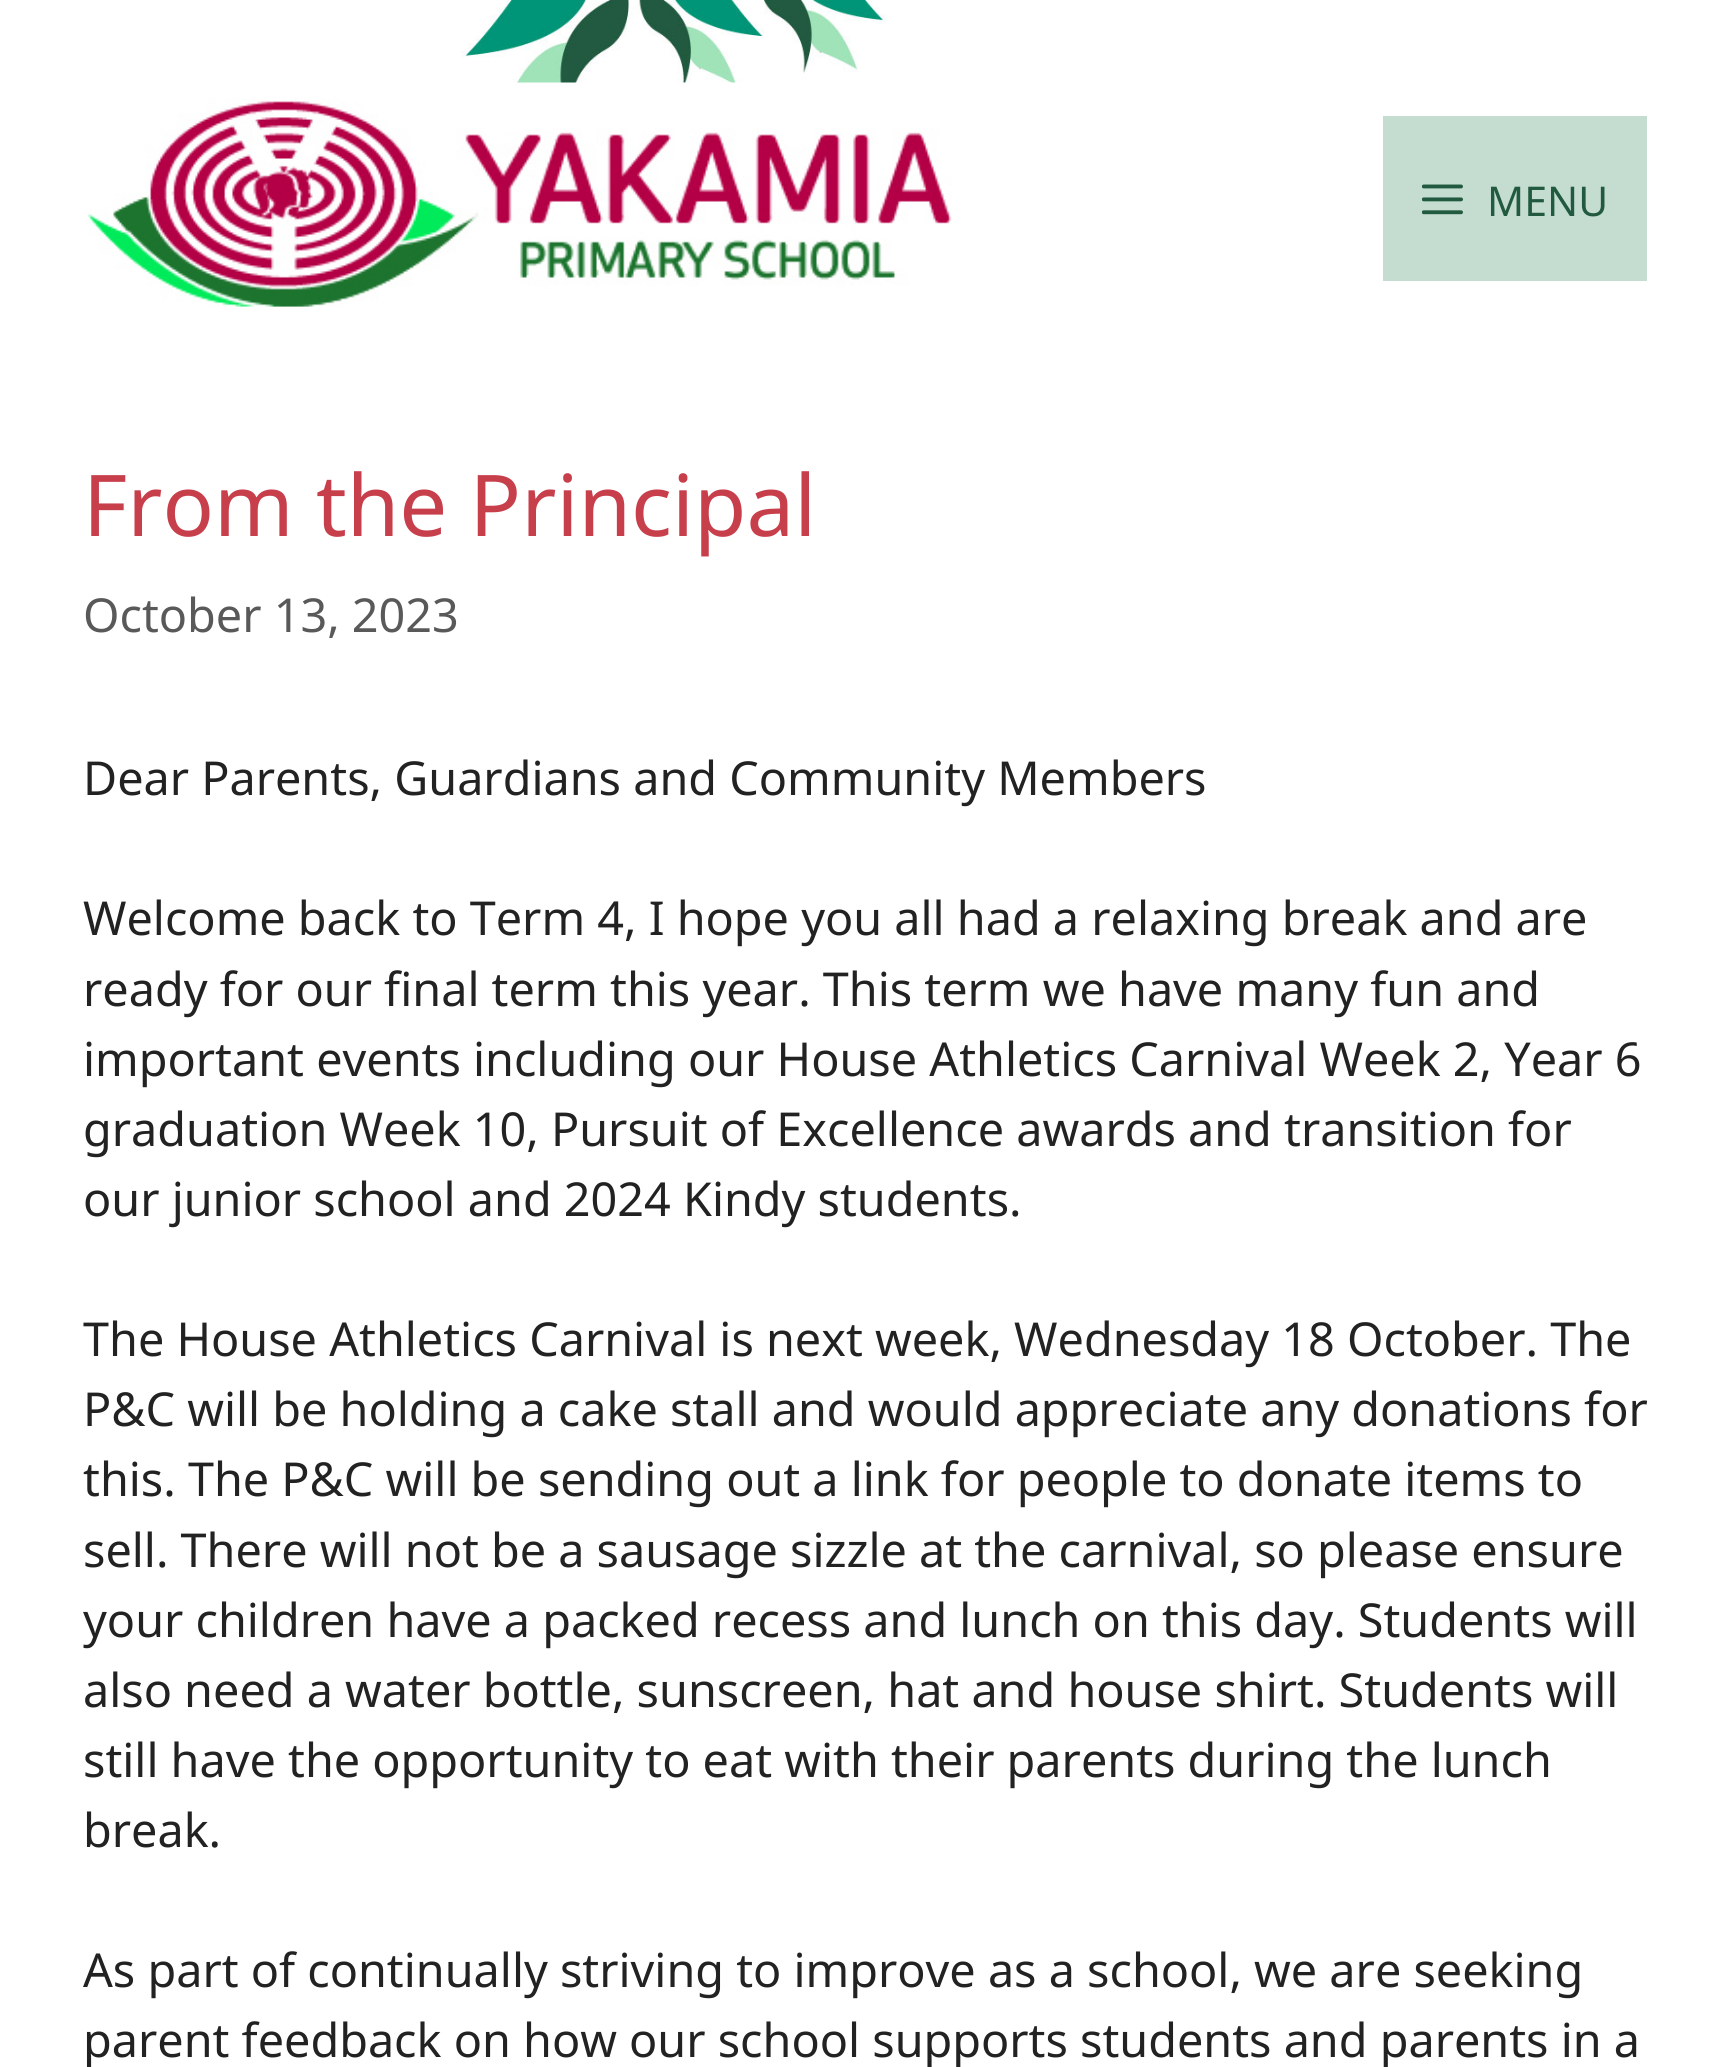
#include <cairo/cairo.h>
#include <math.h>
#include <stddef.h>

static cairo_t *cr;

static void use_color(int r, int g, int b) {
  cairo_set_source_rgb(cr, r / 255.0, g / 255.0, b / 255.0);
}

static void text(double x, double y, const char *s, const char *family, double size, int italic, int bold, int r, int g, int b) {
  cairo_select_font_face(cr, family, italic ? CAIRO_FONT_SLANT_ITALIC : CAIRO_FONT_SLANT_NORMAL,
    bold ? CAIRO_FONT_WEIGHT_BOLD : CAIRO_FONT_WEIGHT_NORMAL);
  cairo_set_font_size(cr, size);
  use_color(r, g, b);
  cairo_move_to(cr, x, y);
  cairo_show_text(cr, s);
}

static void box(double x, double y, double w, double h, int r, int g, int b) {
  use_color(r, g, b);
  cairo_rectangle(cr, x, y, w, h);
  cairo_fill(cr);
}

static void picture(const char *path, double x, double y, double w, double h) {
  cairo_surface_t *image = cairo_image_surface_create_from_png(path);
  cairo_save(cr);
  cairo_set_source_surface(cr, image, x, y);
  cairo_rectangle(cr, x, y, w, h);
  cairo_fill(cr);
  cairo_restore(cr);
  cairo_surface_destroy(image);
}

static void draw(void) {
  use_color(255, 255, 255);
  cairo_paint(cr);
  picture("img_01.png", 461, 0, 426, 83);
  picture("img_02.png", 87, 82, 865, 225);
  box(1383, 116, 264, 165, 197, 220, 209);
  picture("img_03.png", 1422, 184, 41, 31);
  text(1487, 216, "MENU", "Noto Sans", 41, 0, 0, 33, 90, 63);
  text(83, 536, "From the Principal", "Noto Sans", 85.25, 0, 0, 200, 63, 76);
  text(83, 632, "October 13, 2023", "Noto Sans", 46.75, 0, 0, 89, 89, 89);
  text(83, 795, "Dear Parents, Guardians and Community Members", "Noto Sans", 46.75, 0, 0, 34, 34, 34);
  text(83, 935, "Welcome back to Term 4, I hope you all had a relaxing break and are", "Noto Sans", 46.75, 0, 0, 34, 34, 34);
  text(83, 1006, "ready for our final term this year. This term we have many fun and", "Noto Sans", 46.75, 0, 0, 34, 34, 34);
  text(83, 1076, "important events including our House Athletics Carnival Week 2, Year 6", "Noto Sans", 46.75, 0, 0, 34, 34, 34);
  text(83, 1146, "graduation Week 10, Pursuit of Excellence awards and transition for", "Noto Sans", 46.75, 0, 0, 34, 34, 34);
  text(83, 1216, "our junior school and 2024 Kindy students.", "Noto Sans", 46.75, 0, 0, 34, 34, 34);
  text(83, 1356, "The House Athletics Carnival is next week, Wednesday 18 October. The", "Noto Sans", 46.75, 0, 0, 34, 34, 34);
  text(83, 1426, "P&C will be holding a cake stall and would appreciate any donations for", "Noto Sans", 46.75, 0, 0, 34, 34, 34);
  text(83, 1496, "this. The P&C will be sending out a link for people to donate items to", "Noto Sans", 46.75, 0, 0, 34, 34, 34);
  text(83, 1567, "sell. There will not be a sausage sizzle at the carnival, so please ensure", "Noto Sans", 46.75, 0, 0, 34, 34, 34);
  text(83, 1637, "your children have a packed recess and lunch on this day. Students will", "Noto Sans", 46.75, 0, 0, 34, 34, 34);
  text(83, 1707, "also need a water bottle, sunscreen, hat and house shirt. Students will", "Noto Sans", 46.75, 0, 0, 34, 34, 34);
  text(83, 1777, "still have the opportunity to eat with their parents during the lunch", "Noto Sans", 46.75, 0, 0, 34, 34, 34);
  text(83, 1847, "break.", "Noto Sans", 46.75, 0, 0, 34, 34, 34);
  text(83, 1987, "As part of continually striving to improve as a school, we are seeking", "Noto Sans", 46.75, 0, 0, 34, 34, 34);
  text(83, 2057, "parent feedback on how our school supports students and parents in a", "Noto Sans", 46.75, 0, 0, 34, 34, 34);
}

int main(void) {
  cairo_surface_t *surface = cairo_image_surface_create(CAIRO_FORMAT_RGB24, 1728, 2067);
  cr = cairo_create(surface);
  cairo_font_options_t *options = cairo_font_options_create();
  cairo_font_options_set_hint_metrics(options, CAIRO_HINT_METRICS_OFF);
  cairo_font_options_set_hint_style(options, CAIRO_HINT_STYLE_NONE);
  cairo_set_font_options(cr, options);
  cairo_set_miter_limit(cr, 4);
  draw();
  cairo_surface_write_to_png(surface, "out.png");
  cairo_font_options_destroy(options);
  cairo_destroy(cr);
  cairo_surface_destroy(surface);
  return 0;
}
